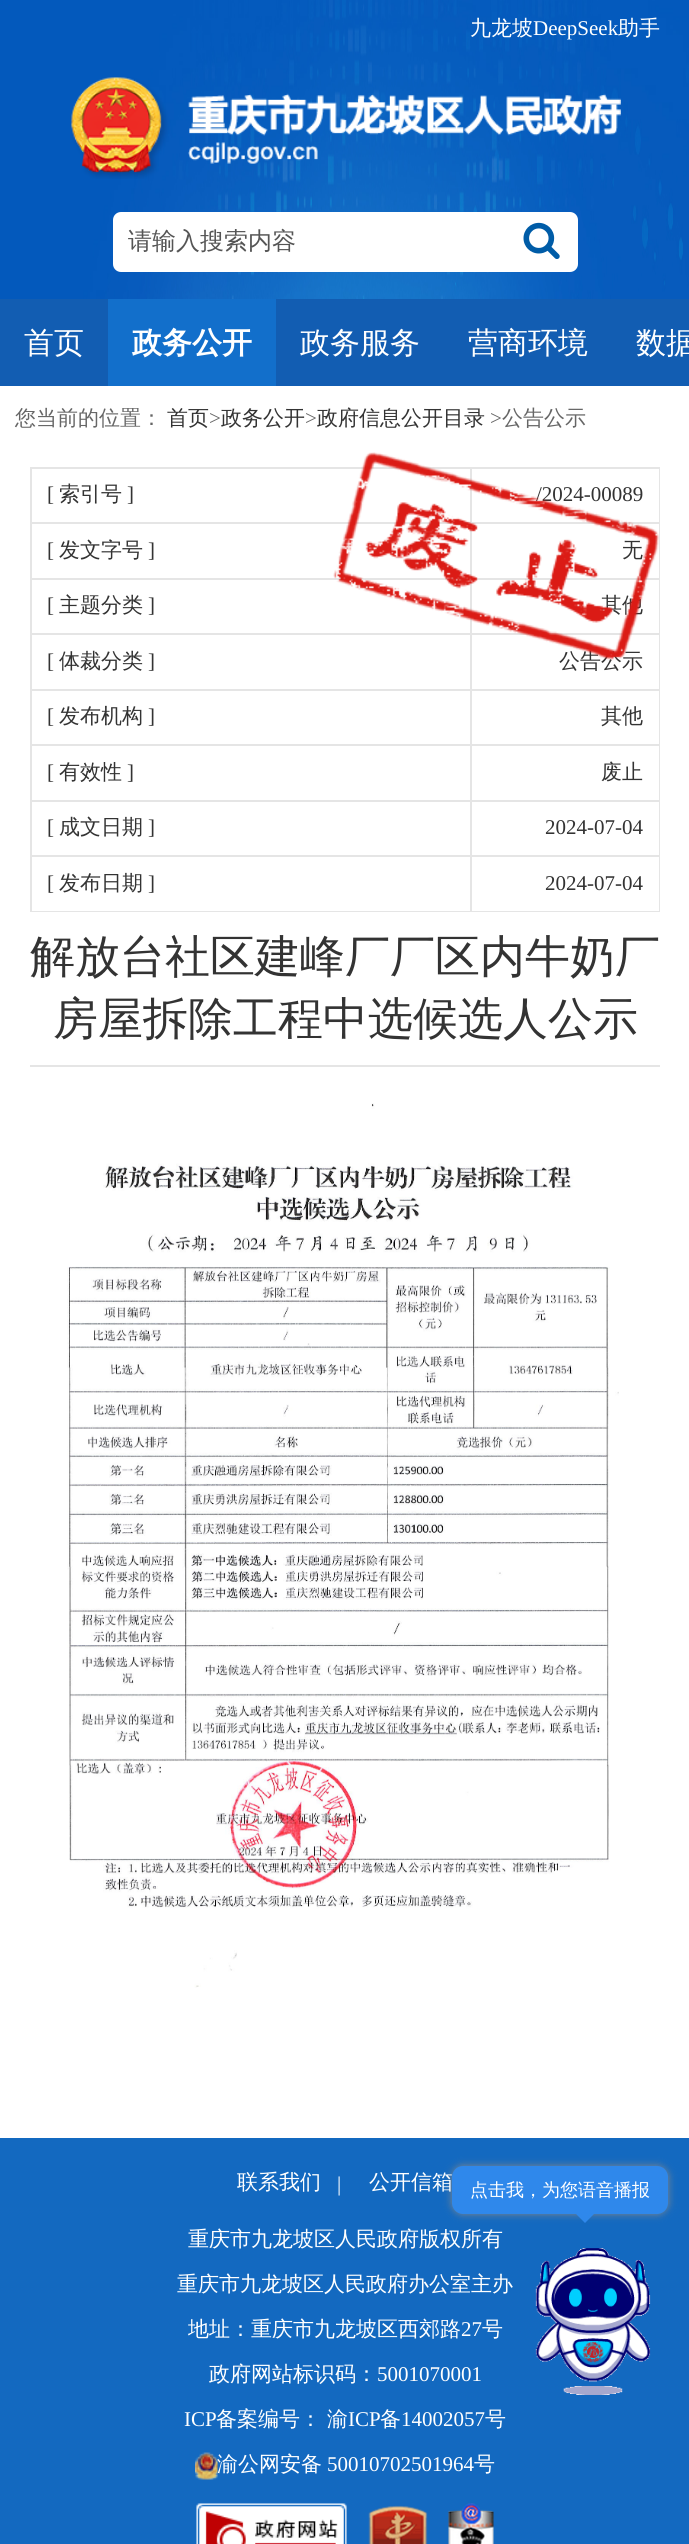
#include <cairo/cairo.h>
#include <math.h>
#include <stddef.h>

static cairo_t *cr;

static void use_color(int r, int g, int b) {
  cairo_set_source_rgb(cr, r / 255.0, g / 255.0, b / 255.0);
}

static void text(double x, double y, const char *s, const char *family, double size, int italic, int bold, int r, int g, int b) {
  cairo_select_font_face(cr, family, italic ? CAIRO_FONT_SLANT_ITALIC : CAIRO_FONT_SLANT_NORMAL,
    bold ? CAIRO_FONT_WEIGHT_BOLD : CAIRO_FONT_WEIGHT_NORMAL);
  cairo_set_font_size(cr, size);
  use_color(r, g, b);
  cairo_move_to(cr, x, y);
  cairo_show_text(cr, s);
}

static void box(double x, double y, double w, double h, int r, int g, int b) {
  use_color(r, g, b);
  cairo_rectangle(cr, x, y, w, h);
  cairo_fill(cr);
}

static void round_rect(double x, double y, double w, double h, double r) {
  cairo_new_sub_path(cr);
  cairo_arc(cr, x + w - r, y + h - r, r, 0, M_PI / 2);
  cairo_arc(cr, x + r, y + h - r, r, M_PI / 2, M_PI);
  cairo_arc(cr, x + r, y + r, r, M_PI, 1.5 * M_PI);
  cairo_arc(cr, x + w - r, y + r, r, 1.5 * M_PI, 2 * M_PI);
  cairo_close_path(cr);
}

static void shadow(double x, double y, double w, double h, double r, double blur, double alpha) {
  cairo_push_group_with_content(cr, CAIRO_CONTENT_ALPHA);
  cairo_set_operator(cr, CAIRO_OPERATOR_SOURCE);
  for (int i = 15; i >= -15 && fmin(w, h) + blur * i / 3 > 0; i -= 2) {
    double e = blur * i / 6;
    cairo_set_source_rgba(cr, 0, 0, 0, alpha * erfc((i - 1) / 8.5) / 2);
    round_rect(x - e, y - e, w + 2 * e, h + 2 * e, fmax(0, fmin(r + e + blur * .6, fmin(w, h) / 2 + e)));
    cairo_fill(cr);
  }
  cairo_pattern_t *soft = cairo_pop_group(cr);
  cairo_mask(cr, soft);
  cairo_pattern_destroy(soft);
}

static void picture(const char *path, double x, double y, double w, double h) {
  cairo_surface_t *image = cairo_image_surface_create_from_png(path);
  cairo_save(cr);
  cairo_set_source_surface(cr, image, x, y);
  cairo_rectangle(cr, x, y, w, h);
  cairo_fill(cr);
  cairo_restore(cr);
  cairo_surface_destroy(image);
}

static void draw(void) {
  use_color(255, 255, 255);
  cairo_paint(cr);
  picture("img_01.png", 0, 0, 689, 299);
  picture("img_02.png", 71, 77, 550, 102);
  use_color(255, 255, 255);
  round_rect(113, 212, 465, 60, 8);
  cairo_fill(cr);
  picture("img_03.png", 523, 222, 37, 37);
  box(0, 299, 689, 87, 18, 93, 178);
  box(108, 299, 168, 87, 18, 111, 203);
  box(30, 467, 630, 2, 229, 229, 229);
  box(30, 467, 2, 445, 229, 229, 229);
  box(470, 468, 2, 111, 229, 229, 229);
  box(32, 522, 439, 2, 229, 229, 229);
  box(659, 468, 1, 111, 229, 229, 229);
  box(471, 522, 189, 2, 229, 229, 229);
  box(32, 578, 628, 2, 229, 229, 229);
  box(470, 579, 2, 111, 229, 229, 229);
  box(32, 633, 439, 2, 229, 229, 229);
  box(659, 579, 1, 111, 229, 229, 229);
  box(471, 633, 189, 2, 229, 229, 229);
  box(32, 689, 628, 2, 229, 229, 229);
  box(470, 690, 2, 111, 229, 229, 229);
  box(32, 744, 439, 2, 229, 229, 229);
  box(659, 690, 1, 111, 229, 229, 229);
  box(471, 744, 189, 2, 229, 229, 229);
  box(32, 800, 628, 2, 229, 229, 229);
  box(470, 801, 2, 111, 229, 229, 229);
  box(32, 855, 439, 2, 229, 229, 229);
  box(659, 801, 1, 111, 229, 229, 229);
  box(471, 855, 189, 2, 229, 229, 229);
  box(32, 911, 628, 1, 229, 229, 229);
  box(30, 1065, 630, 2, 229, 229, 229);
  picture("img_05.png", 67, 1103, 552, 885);
  box(0, 2138, 689, 406, 19, 105, 192);
  picture("img_06.png", 195, 2452, 23, 28);
  picture("img_07.png", 196, 2503, 151, 41);
  picture("img_08.png", 368, 2505, 60, 39);
  picture("img_09.png", 448, 2503, 46, 41);
  use_color(136, 136, 136);
  shadow(452, 2166, 216, 48, 11, 4, 1);
  use_color(47, 136, 235);
  round_rect(452, 2166, 216, 48, 11);
  cairo_fill(cr);
  cairo_new_path(cr);
  cairo_move_to(cr, 574.5, 2212.5);
  cairo_line_to(cr, 595.5, 2212.5);
  cairo_line_to(cr, 585, 2223);
  cairo_close_path(cr);
  cairo_fill(cr);
  picture("img_10.png", 535, 2248, 116, 147);
  text(470, 35, "九龙坡", "WenQuanYi Zen Hei Medium", 21, 0, 0, 255, 255, 255);
  text(533, 35, "DeepSeek", "Liberation Serif", 21, 0, 0, 255, 255, 255);
  text(618, 35, "助手", "WenQuanYi Zen Hei Medium", 21, 0, 0, 255, 255, 255);
  text(128, 249, "请输入搜索内容", "WenQuanYi Zen Hei Medium", 24, 0, 0, 85, 85, 85);
  text(24, 353, "首页", "WenQuanYi Zen Hei Medium", 30, 0, 0, 255, 255, 255);
  text(132, 353, "政务公开", "WenQuanYi Zen Hei", 30, 0, 1, 255, 255, 255);
  text(300, 353, "政务服务", "WenQuanYi Zen Hei Medium", 30, 0, 0, 255, 255, 255);
  text(468, 353, "营商环境", "WenQuanYi Zen Hei Medium", 30, 0, 0, 255, 255, 255);
  text(636, 353, "数据", "WenQuanYi Zen Hei Medium", 30, 0, 0, 255, 255, 255);
  text(15, 425, "您当前的位置：", "WenQuanYi Zen Hei Medium", 21, 0, 0, 102, 102, 102);
  text(167, 425, "首页", "WenQuanYi Zen Hei Medium", 21, 0, 0, 51, 51, 51);
  text(209, 425, ">", "Liberation Serif", 21, 0, 0, 102, 102, 102);
  text(221, 425, "政务公开", "WenQuanYi Zen Hei Medium", 21, 0, 0, 51, 51, 51);
  text(305, 425, ">", "Liberation Serif", 21, 0, 0, 102, 102, 102);
  text(317, 425, "政府信息公开目录", "WenQuanYi Zen Hei Medium", 21, 0, 0, 51, 51, 51);
  text(490, 425, ">", "Liberation Serif", 21, 0, 0, 102, 102, 102);
  text(502, 425, "公告公示", "WenQuanYi Zen Hei Medium", 21, 0, 0, 102, 102, 102);
  text(47, 501, "[", "Liberation Serif", 21, 0, 0, 51, 51, 51);
  text(59, 501, "索引号", "WenQuanYi Zen Hei Medium", 21, 0, 0, 51, 51, 51);
  text(127, 501, "]", "Liberation Serif", 21, 0, 0, 51, 51, 51);
  text(536, 501, "/2024-00089", "Liberation Serif", 21, 0, 0, 51, 51, 51);
  text(47, 557, "[", "Liberation Serif", 21, 0, 0, 51, 51, 51);
  text(59, 557, "发文字号", "WenQuanYi Zen Hei Medium", 21, 0, 0, 51, 51, 51);
  text(148, 557, "]", "Liberation Serif", 21, 0, 0, 51, 51, 51);
  text(622, 557, "无", "WenQuanYi Zen Hei Medium", 21, 0, 0, 51, 51, 51);
  text(47, 612, "[", "Liberation Serif", 21, 0, 0, 51, 51, 51);
  text(59, 612, "主题分类", "WenQuanYi Zen Hei Medium", 21, 0, 0, 51, 51, 51);
  text(148, 612, "]", "Liberation Serif", 21, 0, 0, 51, 51, 51);
  text(601, 612, "其他", "WenQuanYi Zen Hei Medium", 21, 0, 0, 51, 51, 51);
  text(47, 668, "[", "Liberation Serif", 21, 0, 0, 51, 51, 51);
  text(59, 668, "体裁分类", "WenQuanYi Zen Hei Medium", 21, 0, 0, 51, 51, 51);
  text(148, 668, "]", "Liberation Serif", 21, 0, 0, 51, 51, 51);
  text(559, 668, "公告公示", "WenQuanYi Zen Hei Medium", 21, 0, 0, 51, 51, 51);
  picture("img_04.png", 333, 452, 326, 209);
  text(47, 723, "[", "Liberation Serif", 21, 0, 0, 51, 51, 51);
  text(59, 723, "发布机构", "WenQuanYi Zen Hei Medium", 21, 0, 0, 51, 51, 51);
  text(148, 723, "]", "Liberation Serif", 21, 0, 0, 51, 51, 51);
  text(601, 723, "其他", "WenQuanYi Zen Hei Medium", 21, 0, 0, 51, 51, 51);
  text(47, 779, "[", "Liberation Serif", 21, 0, 0, 51, 51, 51);
  text(59, 779, "有效性", "WenQuanYi Zen Hei Medium", 21, 0, 0, 51, 51, 51);
  text(127, 779, "]", "Liberation Serif", 21, 0, 0, 51, 51, 51);
  text(601, 779, "废止", "WenQuanYi Zen Hei Medium", 21, 0, 0, 51, 51, 51);
  text(47, 834, "[", "Liberation Serif", 21, 0, 0, 51, 51, 51);
  text(59, 834, "成文日期", "WenQuanYi Zen Hei Medium", 21, 0, 0, 51, 51, 51);
  text(148, 834, "]", "Liberation Serif", 21, 0, 0, 51, 51, 51);
  text(545, 834, "2024-07-04", "Liberation Serif", 21, 0, 0, 51, 51, 51);
  text(47, 890, "[", "Liberation Serif", 21, 0, 0, 51, 51, 51);
  text(59, 890, "发布日期", "WenQuanYi Zen Hei Medium", 21, 0, 0, 51, 51, 51);
  text(148, 890, "]", "Liberation Serif", 21, 0, 0, 51, 51, 51);
  text(545, 890, "2024-07-04", "Liberation Serif", 21, 0, 0, 51, 51, 51);
  text(30, 972, "解放台社区建峰厂厂区内牛奶厂", "WenQuanYi Zen Hei Medium", 45, 0, 0, 51, 51, 51);
  text(53, 1034, "房屋拆除工程中选候选人公示", "WenQuanYi Zen Hei Medium", 45, 0, 0, 51, 51, 51);
  text(237, 2189, "联系我们", "WenQuanYi Zen Hei Medium", 21, 0, 0, 255, 255, 255);
  text(337, 2191, "|", "Liberation Serif", 21, 0, 0, 255, 255, 255);
  text(369, 2189, "公开信箱", "WenQuanYi Zen Hei Medium", 21, 0, 0, 255, 255, 255);
  text(188, 2246, "重庆市九龙坡区人民政府版权所有", "WenQuanYi Zen Hei Medium", 21, 0, 0, 255, 255, 255);
  text(177, 2291, "重庆市九龙坡区人民政府办公室主办", "WenQuanYi Zen Hei Medium", 21, 0, 0, 255, 255, 255);
  text(188, 2336, "地址：重庆市九龙坡区西郊路", "WenQuanYi Zen Hei Medium", 21, 0, 0, 255, 255, 255);
  text(461, 2336, "27", "Liberation Serif", 21, 0, 0, 255, 255, 255);
  text(482, 2336, "号", "WenQuanYi Zen Hei Medium", 21, 0, 0, 255, 255, 255);
  text(209, 2381, "政府网站标识码：", "WenQuanYi Zen Hei Medium", 21, 0, 0, 255, 255, 255);
  text(377, 2381, "5001070001", "Liberation Serif", 21, 0, 0, 255, 255, 255);
  text(184, 2426, "ICP", "Liberation Serif", 21, 0, 0, 255, 255, 255);
  text(216, 2426, "备案编号：", "WenQuanYi Zen Hei Medium", 21, 0, 0, 255, 255, 255);
  text(327, 2426, "渝", "WenQuanYi Zen Hei Medium", 21, 0, 0, 255, 255, 255);
  text(348, 2426, "ICP", "Liberation Serif", 21, 0, 0, 255, 255, 255);
  text(380, 2426, "备", "WenQuanYi Zen Hei Medium", 21, 0, 0, 255, 255, 255);
  text(401, 2426, "14002057", "Liberation Serif", 21, 0, 0, 255, 255, 255);
  text(485, 2426, "号", "WenQuanYi Zen Hei Medium", 21, 0, 0, 255, 255, 255);
  text(217, 2471, "渝公网安备", "WenQuanYi Zen Hei Medium", 21, 0, 0, 255, 255, 255);
  text(327, 2471, "50010702501964", "Liberation Serif", 21, 0, 0, 255, 255, 255);
  text(474, 2471, "号", "WenQuanYi Zen Hei Medium", 21, 0, 0, 255, 255, 255);
  text(470, 2196, "点击我，为您语音播报", "WenQuanYi Zen Hei Medium", 18, 0, 0, 255, 255, 255);
}

int main(void) {
  cairo_surface_t *surface = cairo_image_surface_create(CAIRO_FORMAT_RGB24, 689, 2544);
  cr = cairo_create(surface);
  cairo_font_options_t *options = cairo_font_options_create();
  cairo_font_options_set_hint_metrics(options, CAIRO_HINT_METRICS_OFF);
  cairo_font_options_set_hint_style(options, CAIRO_HINT_STYLE_NONE);
  cairo_set_font_options(cr, options);
  cairo_set_miter_limit(cr, 4);
  draw();
  cairo_surface_write_to_png(surface, "out.png");
  cairo_font_options_destroy(options);
  cairo_destroy(cr);
  cairo_surface_destroy(surface);
  return 0;
}
